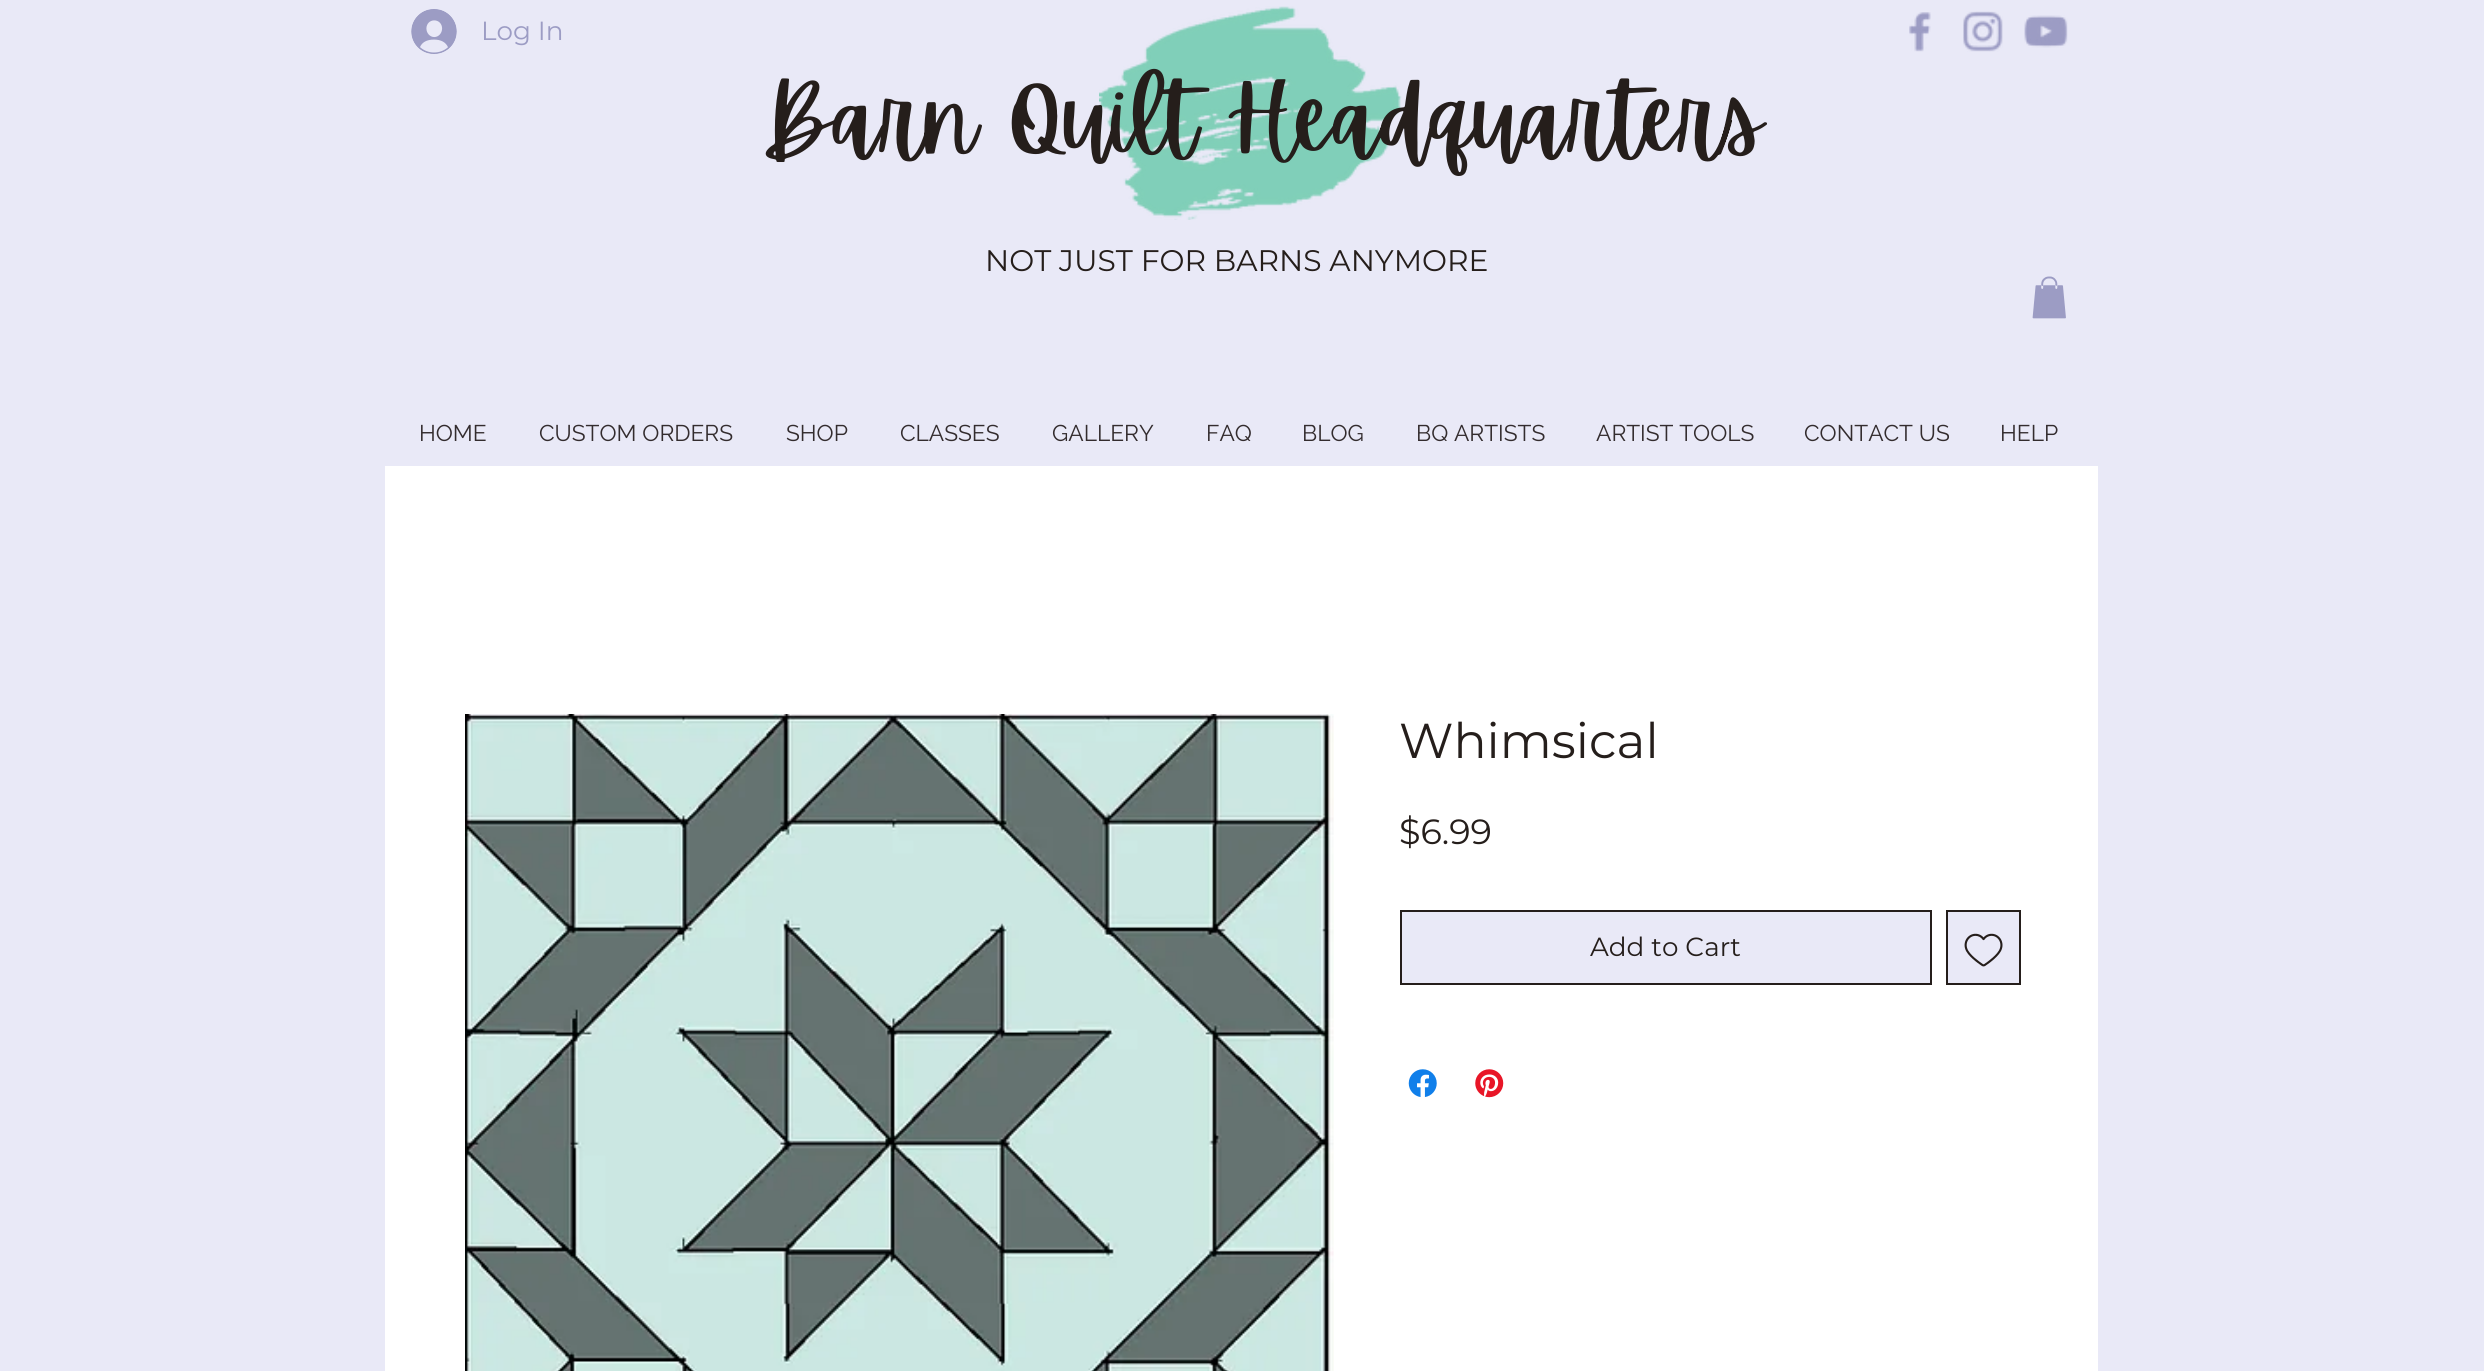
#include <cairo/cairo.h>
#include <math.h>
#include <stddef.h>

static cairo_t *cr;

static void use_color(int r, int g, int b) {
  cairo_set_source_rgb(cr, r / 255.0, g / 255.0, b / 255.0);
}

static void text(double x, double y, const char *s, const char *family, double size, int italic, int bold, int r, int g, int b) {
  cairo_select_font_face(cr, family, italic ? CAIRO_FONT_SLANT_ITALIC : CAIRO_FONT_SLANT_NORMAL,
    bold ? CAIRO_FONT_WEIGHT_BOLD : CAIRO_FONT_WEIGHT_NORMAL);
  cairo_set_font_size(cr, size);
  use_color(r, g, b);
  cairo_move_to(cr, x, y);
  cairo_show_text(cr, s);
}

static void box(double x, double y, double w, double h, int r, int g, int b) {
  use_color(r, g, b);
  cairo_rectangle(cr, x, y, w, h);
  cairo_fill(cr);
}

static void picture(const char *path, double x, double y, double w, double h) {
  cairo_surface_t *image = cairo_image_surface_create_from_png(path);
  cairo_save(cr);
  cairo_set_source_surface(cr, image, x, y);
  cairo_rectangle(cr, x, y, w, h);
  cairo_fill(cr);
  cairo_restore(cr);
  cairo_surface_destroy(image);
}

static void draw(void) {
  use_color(233, 233, 247);
  cairo_paint(cr);
  picture("img_01.png", 411, 9, 46, 45);
  picture("img_02.png", 1099, 6, 303, 214);
  picture("img_03.png", 1909, 12, 22, 40);
  picture("img_04.png", 1963, 11, 40, 41);
  picture("img_05.png", 2024, 15, 44, 33);
  picture("img_06.png", 2032, 276, 34, 43);
  box(385, 466, 1713, 905, 255, 255, 255);
  picture("img_07.png", 465, 714, 869, 657);
  use_color(233, 233, 247);
  cairo_rectangle(cr, 1401, 911, 530, 73);
  cairo_fill_preserve(cr);
  use_color(37, 30, 27);
  cairo_stroke(cr);
  use_color(233, 233, 247);
  cairo_rectangle(cr, 1947, 911, 73, 73);
  cairo_fill_preserve(cr);
  use_color(37, 30, 27);
  cairo_stroke(cr);
  picture("img_08.png", 1964, 933, 39, 34);
  picture("img_09.png", 1408, 1069, 29, 28);
  picture("img_10.png", 1475, 1069, 29, 29);
  text(481, 40, "Log In", "Montserrat", 26.25, 0, 0, 156, 156, 196);
  text(761, 152, "Barn Quilt Headquarters", "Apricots", 94.5, 0, 0, 37, 30, 27);
  text(985, 271, "NOT JUST FOR BARNS ANYMORE", "Montserrat", 29.75, 0, 0, 37, 30, 27);
  text(419, 441, "HOME", "Raleway", 22.75, 0, 0, 51, 44, 46);
  text(539, 441, "CUSTOM ORDERS", "Raleway", 22.75, 0, 0, 51, 44, 46);
  text(786, 441, "SHOP", "Raleway", 22.75, 0, 0, 51, 44, 46);
  text(900, 441, "CLASSES", "Raleway", 22.75, 0, 0, 51, 44, 46);
  text(1052, 441, "GALLERY", "Raleway", 22.75, 0, 0, 51, 44, 46);
  text(1206, 441, "FAQ", "Raleway", 22.75, 0, 0, 51, 44, 46);
  text(1302, 441, "BLOG", "Raleway", 22.75, 0, 0, 51, 44, 46);
  text(1416, 441, "BQ ARTISTS", "Raleway", 22.75, 0, 0, 51, 44, 46);
  text(1596, 441, "ARTIST TOOLS", "Raleway", 22.75, 0, 0, 51, 44, 46);
  text(1804, 441, "CONTACT US", "Raleway", 22.75, 0, 0, 51, 44, 46);
  text(2000, 441, "HELP", "Raleway", 22.75, 0, 0, 51, 44, 46);
  text(1399, 758, "Whimsical", "Montserrat", 49, 0, 0, 37, 30, 27);
  text(1399, 844, "$6.99", "Montserrat", 35, 0, 0, 37, 30, 27);
  text(1590, 956, "Add to Cart", "Montserrat", 26.25, 0, 0, 37, 30, 27);
}

int main(void) {
  cairo_surface_t *surface = cairo_image_surface_create(CAIRO_FORMAT_RGB24, 2484, 1371);
  cr = cairo_create(surface);
  cairo_font_options_t *options = cairo_font_options_create();
  cairo_font_options_set_hint_metrics(options, CAIRO_HINT_METRICS_OFF);
  cairo_font_options_set_hint_style(options, CAIRO_HINT_STYLE_NONE);
  cairo_set_font_options(cr, options);
  cairo_set_miter_limit(cr, 4);
  draw();
  cairo_surface_write_to_png(surface, "out.png");
  cairo_font_options_destroy(options);
  cairo_destroy(cr);
  cairo_surface_destroy(surface);
  return 0;
}
